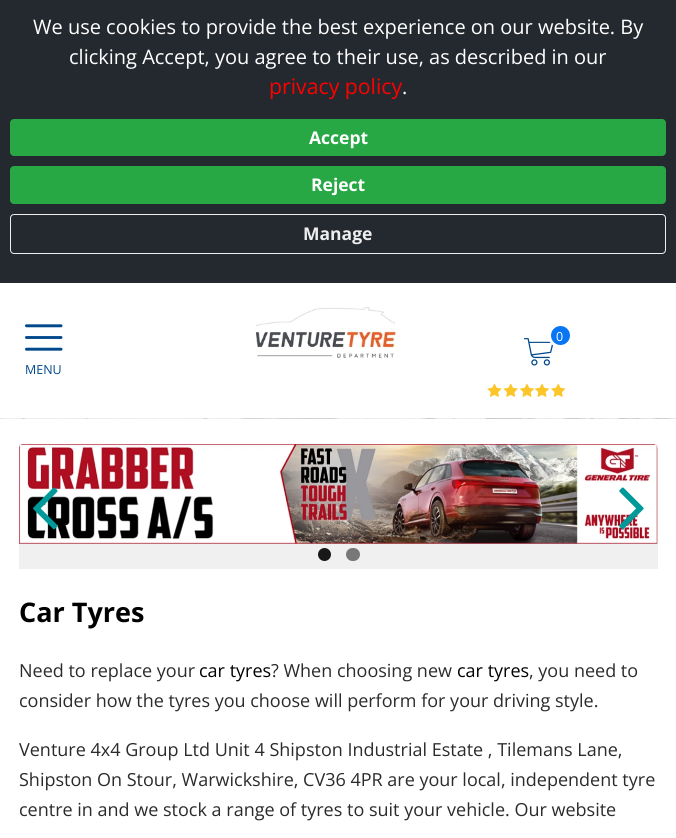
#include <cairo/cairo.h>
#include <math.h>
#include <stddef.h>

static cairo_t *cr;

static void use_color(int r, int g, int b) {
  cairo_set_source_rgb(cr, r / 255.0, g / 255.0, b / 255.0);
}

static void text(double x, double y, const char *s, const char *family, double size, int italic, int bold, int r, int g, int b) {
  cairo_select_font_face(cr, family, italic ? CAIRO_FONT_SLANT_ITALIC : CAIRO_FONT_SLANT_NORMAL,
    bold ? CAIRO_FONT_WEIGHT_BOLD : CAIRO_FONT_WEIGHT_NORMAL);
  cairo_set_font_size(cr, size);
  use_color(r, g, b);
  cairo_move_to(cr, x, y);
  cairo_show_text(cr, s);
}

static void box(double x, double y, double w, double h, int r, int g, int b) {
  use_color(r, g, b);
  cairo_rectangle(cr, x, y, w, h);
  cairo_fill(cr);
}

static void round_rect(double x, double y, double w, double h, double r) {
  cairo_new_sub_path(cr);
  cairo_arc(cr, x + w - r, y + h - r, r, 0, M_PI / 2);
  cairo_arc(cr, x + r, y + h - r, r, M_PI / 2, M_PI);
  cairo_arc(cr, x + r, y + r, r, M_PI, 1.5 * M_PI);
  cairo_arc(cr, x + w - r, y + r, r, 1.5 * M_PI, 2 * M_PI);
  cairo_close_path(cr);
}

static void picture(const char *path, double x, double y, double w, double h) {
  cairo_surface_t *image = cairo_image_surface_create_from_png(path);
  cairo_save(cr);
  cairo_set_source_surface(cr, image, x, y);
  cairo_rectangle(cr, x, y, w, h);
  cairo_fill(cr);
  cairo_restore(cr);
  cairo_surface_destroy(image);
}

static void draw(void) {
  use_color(255, 255, 255);
  cairo_paint(cr);
  box(0, 0, 676, 283, 36, 41, 47);
  use_color(40, 167, 69);
  round_rect(10, 119, 656, 37, 4);
  cairo_fill(cr);
  round_rect(10, 166, 656, 38, 4);
  cairo_fill(cr);
  round_rect(10.5, 214.5, 655, 39, 3.5);
  use_color(238, 238, 238);
  cairo_set_line_width(cr, 1);
  cairo_stroke(cr);
  picture("img_01.png", 255, 307, 141, 51);
  picture("img_02.png", 487, 383, 15, 14);
  picture("img_03.png", 503, 383, 15, 14);
  picture("img_04.png", 520, 383, 14, 14);
  picture("img_04.png", 535, 383, 14, 14);
  picture("img_05.png", 551, 383, 15, 14);
  picture("img_06.png", 524, 338, 30, 28);
  use_color(8, 117, 244);
  cairo_arc(cr, 560.5, 335.5, 11, 0, 2 * M_PI);
  cairo_fill_preserve(cr);
  use_color(255, 255, 255);
  cairo_set_line_width(cr, 3);
  cairo_stroke(cr);
  picture("img_07.png", 25, 324, 38, 27);
  picture("img_08.png", 0, 418, 676, 1);
  box(19, 444, 639, 125, 240, 240, 240);
  picture("img_09.png", 19, 444, 639, 100);
  picture("img_10.png", 33, 487, 25, 43);
  picture("img_11.png", 619, 487, 25, 43);
  use_color(24, 24, 24);
  cairo_arc(cr, 324.5, 554.5, 6.5, 0, 2 * M_PI);
  cairo_fill(cr);
  use_color(120, 120, 120);
  round_rect(346, 548, 14, 13, 6.5);
  cairo_fill(cr);
  text(33, 34, "We use cookies to provide the best experience on our website. By", "Open Sans", 20, 0, 0, 255, 255, 255);
  text(69, 64, "clicking Accept, you agree to their use, as described in our", "Open Sans", 20, 0, 0, 255, 255, 255);
  text(269, 94, "privacy policy", "Open Sans", 21.25, 0, 0, 255, 0, 0);
  text(402, 94, ".", "Open Sans", 20, 0, 0, 255, 255, 255);
  text(309, 144, "Accept", "Open Sans", 17.5, 0, 1, 255, 255, 255);
  text(311, 191, "Reject", "Open Sans", 17.5, 0, 1, 255, 255, 255);
  text(303, 240, "Manage", "Open Sans", 17.5, 0, 1, 238, 238, 238);
  text(556, 341, "0", "Open Sans", 12.5, 0, 0, 255, 255, 255);
  text(25, 374, "MENU", "Open Sans", 12.5, 0, 0, 0, 72, 140);
  text(19, 622, "Car Tyres", "Open Sans", 27, 0, 1, 0, 0, 0);
  text(19, 677, "Need to replace your", "Open Sans", 18, 0, 0, 43, 43, 43);
  text(199, 677, "car tyres", "Open Sans", 18, 0, 0, 0, 0, 0);
  text(271, 677, "? When choosing new", "Open Sans", 18, 0, 0, 43, 43, 43);
  text(457, 677, "car tyres", "Open Sans", 18, 0, 0, 0, 0, 0);
  text(529, 677, ", you need to", "Open Sans", 18, 0, 0, 43, 43, 43);
  text(19, 707, "consider how the tyres you choose will perform for your driving style.", "Open Sans", 18, 0, 0, 43, 43, 43);
  text(19, 756, "Venture 4x4 Group Ltd Unit 4 Shipston Industrial Estate , Tilemans Lane,", "Open Sans", 18, 0, 0, 43, 43, 43);
  text(19, 786, "Shipston On Stour, Warwickshire, CV36 4PR are your local, independent tyre", "Open Sans", 18, 0, 0, 43, 43, 43);
  text(19, 816, "centre in and we stock a range of tyres to suit your vehicle. Our website", "Open Sans", 18, 0, 0, 43, 43, 43);
}

int main(void) {
  cairo_surface_t *surface = cairo_image_surface_create(CAIRO_FORMAT_RGB24, 676, 838);
  cr = cairo_create(surface);
  cairo_font_options_t *options = cairo_font_options_create();
  cairo_font_options_set_hint_metrics(options, CAIRO_HINT_METRICS_OFF);
  cairo_font_options_set_hint_style(options, CAIRO_HINT_STYLE_NONE);
  cairo_set_font_options(cr, options);
  cairo_set_miter_limit(cr, 4);
  draw();
  cairo_surface_write_to_png(surface, "out.png");
  cairo_font_options_destroy(options);
  cairo_destroy(cr);
  cairo_surface_destroy(surface);
  return 0;
}
